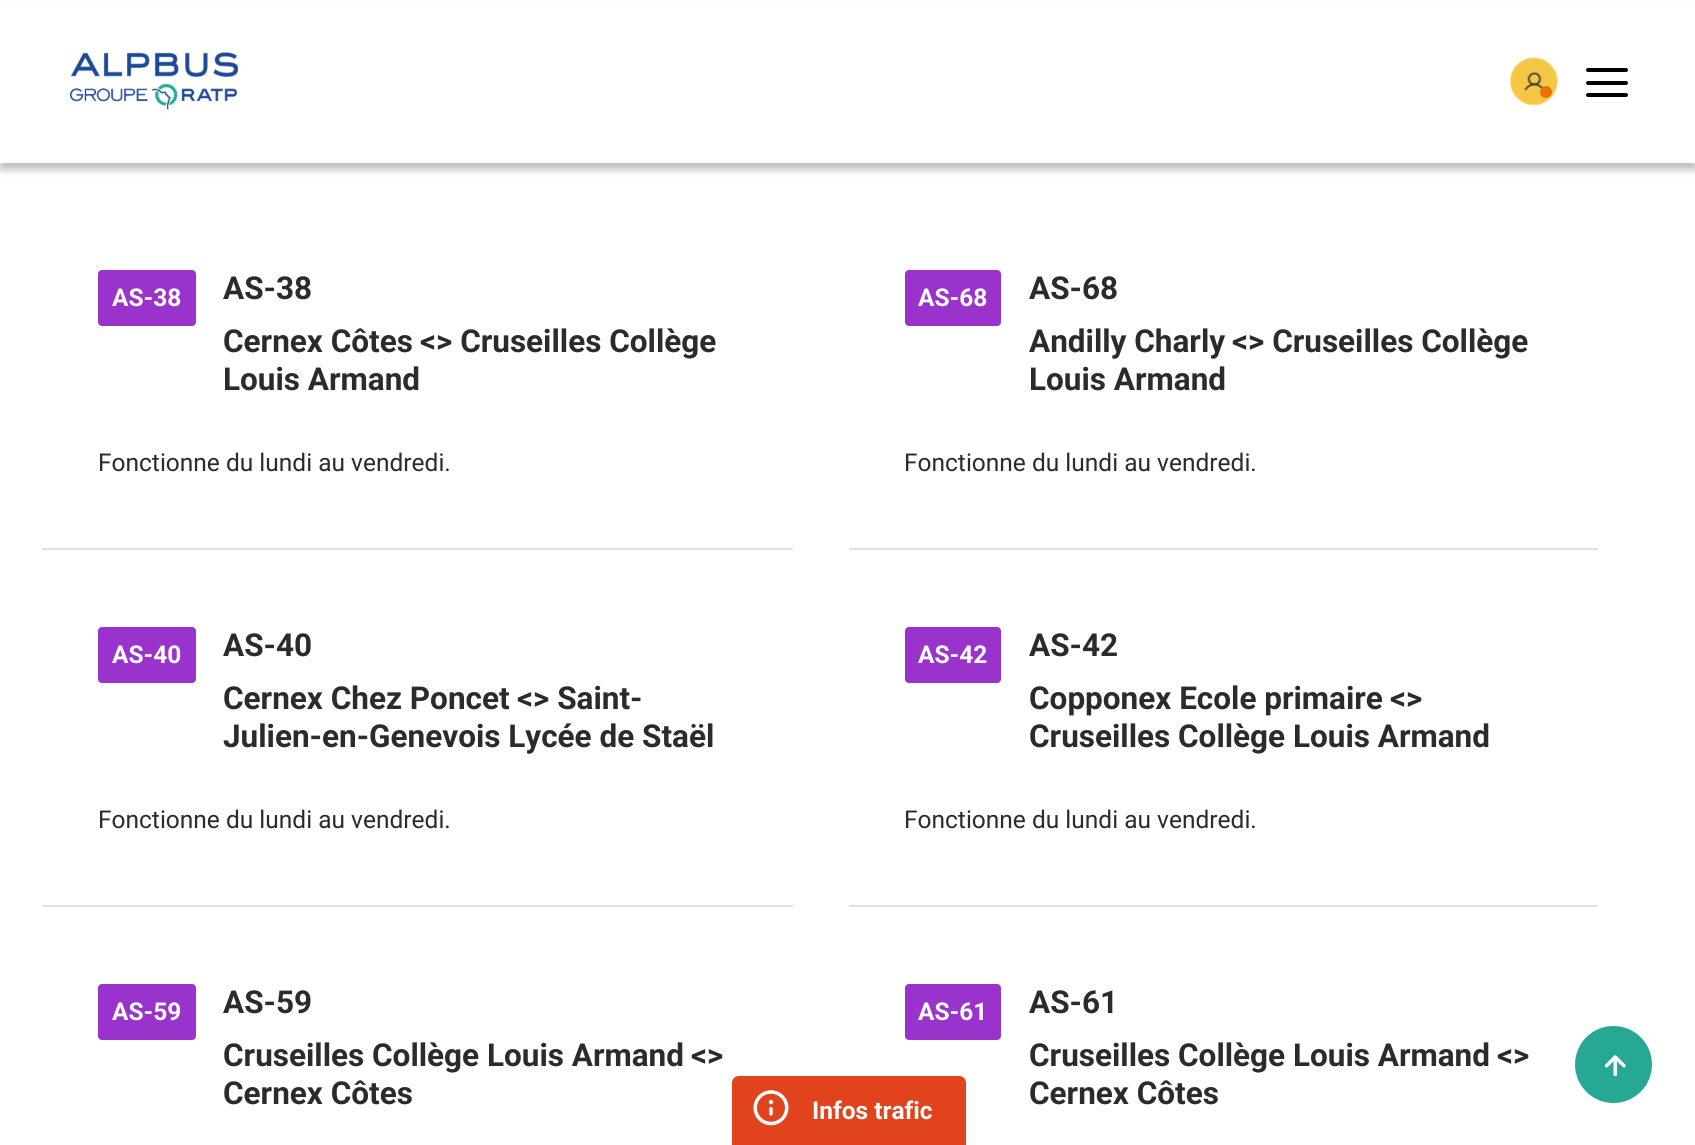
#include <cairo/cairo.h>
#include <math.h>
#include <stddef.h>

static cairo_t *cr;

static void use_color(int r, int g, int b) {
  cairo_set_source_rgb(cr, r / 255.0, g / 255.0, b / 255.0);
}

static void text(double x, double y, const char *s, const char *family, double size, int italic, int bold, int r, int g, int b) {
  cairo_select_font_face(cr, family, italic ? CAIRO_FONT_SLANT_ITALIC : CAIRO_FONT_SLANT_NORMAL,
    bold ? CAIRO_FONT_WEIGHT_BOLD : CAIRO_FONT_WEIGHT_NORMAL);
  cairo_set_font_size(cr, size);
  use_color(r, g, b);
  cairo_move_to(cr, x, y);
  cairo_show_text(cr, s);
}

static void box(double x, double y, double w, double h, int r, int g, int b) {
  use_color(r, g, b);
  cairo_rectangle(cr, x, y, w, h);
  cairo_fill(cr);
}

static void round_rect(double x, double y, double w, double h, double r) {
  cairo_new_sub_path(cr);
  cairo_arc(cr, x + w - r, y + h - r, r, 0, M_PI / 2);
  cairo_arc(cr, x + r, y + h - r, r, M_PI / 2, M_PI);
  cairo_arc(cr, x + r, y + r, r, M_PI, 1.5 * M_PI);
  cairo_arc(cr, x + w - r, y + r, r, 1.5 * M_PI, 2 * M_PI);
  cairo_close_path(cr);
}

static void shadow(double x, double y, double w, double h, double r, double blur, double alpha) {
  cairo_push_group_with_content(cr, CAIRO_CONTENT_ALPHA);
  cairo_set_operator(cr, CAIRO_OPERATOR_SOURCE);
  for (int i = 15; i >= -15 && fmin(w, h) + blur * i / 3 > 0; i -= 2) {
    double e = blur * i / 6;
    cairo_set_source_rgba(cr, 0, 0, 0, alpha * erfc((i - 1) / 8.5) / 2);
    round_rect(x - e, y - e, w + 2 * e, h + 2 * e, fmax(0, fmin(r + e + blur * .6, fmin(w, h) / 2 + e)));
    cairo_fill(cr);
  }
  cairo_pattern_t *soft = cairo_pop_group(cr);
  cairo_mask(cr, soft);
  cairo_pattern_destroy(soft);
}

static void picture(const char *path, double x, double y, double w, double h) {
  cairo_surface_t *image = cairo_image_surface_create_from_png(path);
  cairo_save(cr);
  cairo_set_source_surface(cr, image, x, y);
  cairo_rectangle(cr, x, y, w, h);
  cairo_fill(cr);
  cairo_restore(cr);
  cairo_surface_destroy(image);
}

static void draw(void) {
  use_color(255, 255, 255);
  cairo_paint(cr);
  box(42, 548, 751, 2, 225, 225, 225);
  use_color(153, 51, 204);
  round_rect(98, 270, 98, 56, 4);
  cairo_fill(cr);
  box(849, 548, 749, 2, 225, 225, 225);
  use_color(153, 51, 204);
  round_rect(905, 270, 96, 56, 4);
  cairo_fill(cr);
  box(42, 905, 751, 2, 225, 225, 225);
  use_color(153, 51, 204);
  round_rect(98, 627, 98, 56, 4);
  cairo_fill(cr);
  box(849, 905, 749, 2, 225, 225, 225);
  use_color(153, 51, 204);
  round_rect(905, 627, 96, 56, 4);
  cairo_fill(cr);
  round_rect(98, 984, 98, 56, 4);
  cairo_fill(cr);
  round_rect(905, 984, 96, 56, 4);
  cairo_fill(cr);
  use_color(38, 168, 148);
  cairo_arc(cr, 1613.5, 1064.5, 37.5, 0, 2 * M_PI);
  cairo_fill_preserve(cr);
  cairo_stroke(cr);
  picture("img_01.png", 1604, 1055, 22, 22);
  use_color(0, 0, 0);
  shadow(0, 7, 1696, 163, 0, 3.5, 0.25);
  box(0, 1, 1695, 162, 255, 255, 255);
  picture("img_02.png", 70, 52, 168, 58);
  picture("img_03.png", 1510, 57, 48, 48);
  use_color(234, 114, 4);
  cairo_arc(cr, 1546, 92, 6, 0, 2 * M_PI);
  cairo_fill(cr);
  use_color(0, 0, 0);
  round_rect(1586, 81, 42, 4, 2);
  cairo_fill(cr);
  round_rect(1586, 68, 42, 4, 2);
  cairo_fill(cr);
  round_rect(1586, 93, 42, 4, 2);
  cairo_fill(cr);
  use_color(225, 67, 29);
  cairo_new_path(cr);
  cairo_move_to(cr, 739, 1076);
  cairo_line_to(cr, 959, 1076);
  cairo_curve_to(cr, 963, 1076, 966, 1079, 966, 1083);
  cairo_line_to(cr, 966, 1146);
  cairo_line_to(cr, 732, 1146);
  cairo_line_to(cr, 732, 1083);
  cairo_curve_to(cr, 732, 1079, 735, 1076, 739, 1076);
  cairo_close_path(cr);
  cairo_fill(cr);
  picture("img_04.png", 753, 1090, 36, 36);
  text(112, 306, "AS-38", "Roboto", 24.5, 0, 1, 255, 255, 255);
  text(223, 299, "AS-38", "Roboto", 31.5, 0, 1, 43, 43, 43);
  text(223, 352, "Cernex Côtes", "Roboto", 31.5, 0, 1, 43, 43, 43);
  text(420, 352, "<> Cruseilles Collège", "Roboto", 31.5, 0, 1, 43, 43, 43);
  text(223, 390, "Louis Armand", "Roboto", 31.5, 0, 1, 43, 43, 43);
  text(98, 471, "Fonctionne du lundi au vendredi.", "Roboto", 24.5, 0, 0, 43, 43, 43);
  text(918, 306, "AS-68", "Roboto", 24.5, 0, 1, 255, 255, 255);
  text(1029, 299, "AS-68", "Roboto", 31.5, 0, 1, 43, 43, 43);
  text(1029, 352, "Andilly Charly", "Roboto", 31.5, 0, 1, 43, 43, 43);
  text(1232, 352, "<> Cruseilles Collège", "Roboto", 31.5, 0, 1, 43, 43, 43);
  text(1029, 390, "Louis Armand", "Roboto", 31.5, 0, 1, 43, 43, 43);
  text(904, 471, "Fonctionne du lundi au vendredi.", "Roboto", 24.5, 0, 0, 43, 43, 43);
  text(112, 663, "AS-40", "Roboto", 24.5, 0, 1, 255, 255, 255);
  text(223, 656, "AS-40", "Roboto", 31.5, 0, 1, 43, 43, 43);
  text(223, 709, "Cernex Chez Poncet", "Roboto", 31.5, 0, 1, 43, 43, 43);
  text(517, 709, "<> Saint-", "Roboto", 31.5, 0, 1, 43, 43, 43);
  text(223, 747, "Julien-en-Genevois Lycée de Staël", "Roboto", 31.5, 0, 1, 43, 43, 43);
  text(98, 828, "Fonctionne du lundi au vendredi.", "Roboto", 24.5, 0, 0, 43, 43, 43);
  text(918, 663, "AS-42", "Roboto", 24.5, 0, 1, 255, 255, 255);
  text(1029, 656, "AS-42", "Roboto", 31.5, 0, 1, 43, 43, 43);
  text(1029, 709, "Copponex Ecole primaire", "Roboto", 31.5, 0, 1, 43, 43, 43);
  text(1390, 709, "<>", "Roboto", 31.5, 0, 1, 43, 43, 43);
  text(1029, 747, "Cruseilles Collège Louis Armand", "Roboto", 31.5, 0, 1, 43, 43, 43);
  text(904, 828, "Fonctionne du lundi au vendredi.", "Roboto", 24.5, 0, 0, 43, 43, 43);
  text(112, 1020, "AS-59", "Roboto", 24.5, 0, 1, 255, 255, 255);
  text(223, 1013, "AS-59", "Roboto", 31.5, 0, 1, 43, 43, 43);
  text(223, 1066, "Cruseilles Collège Louis Armand", "Roboto", 31.5, 0, 1, 43, 43, 43);
  text(691, 1066, "<>", "Roboto", 31.5, 0, 1, 43, 43, 43);
  text(223, 1104, "Cernex Côtes", "Roboto", 31.5, 0, 1, 43, 43, 43);
  text(918, 1020, "AS-61", "Roboto", 24.5, 0, 1, 255, 255, 255);
  text(1029, 1013, "AS-61", "Roboto", 31.5, 0, 1, 43, 43, 43);
  text(1029, 1066, "Cruseilles Collège Louis Armand", "Roboto", 31.5, 0, 1, 43, 43, 43);
  text(1497, 1066, "<>", "Roboto", 31.5, 0, 1, 43, 43, 43);
  text(1029, 1104, "Cernex Côtes", "Roboto", 31.5, 0, 1, 43, 43, 43);
  text(812, 1119, "Infos trafic", "Roboto", 24.5, 0, 1, 255, 255, 255);
}

int main(void) {
  cairo_surface_t *surface = cairo_image_surface_create(CAIRO_FORMAT_RGB24, 1695, 1145);
  cr = cairo_create(surface);
  cairo_font_options_t *options = cairo_font_options_create();
  cairo_font_options_set_hint_metrics(options, CAIRO_HINT_METRICS_OFF);
  cairo_font_options_set_hint_style(options, CAIRO_HINT_STYLE_NONE);
  cairo_set_font_options(cr, options);
  cairo_set_miter_limit(cr, 4);
  draw();
  cairo_surface_write_to_png(surface, "out.png");
  cairo_font_options_destroy(options);
  cairo_destroy(cr);
  cairo_surface_destroy(surface);
  return 0;
}
